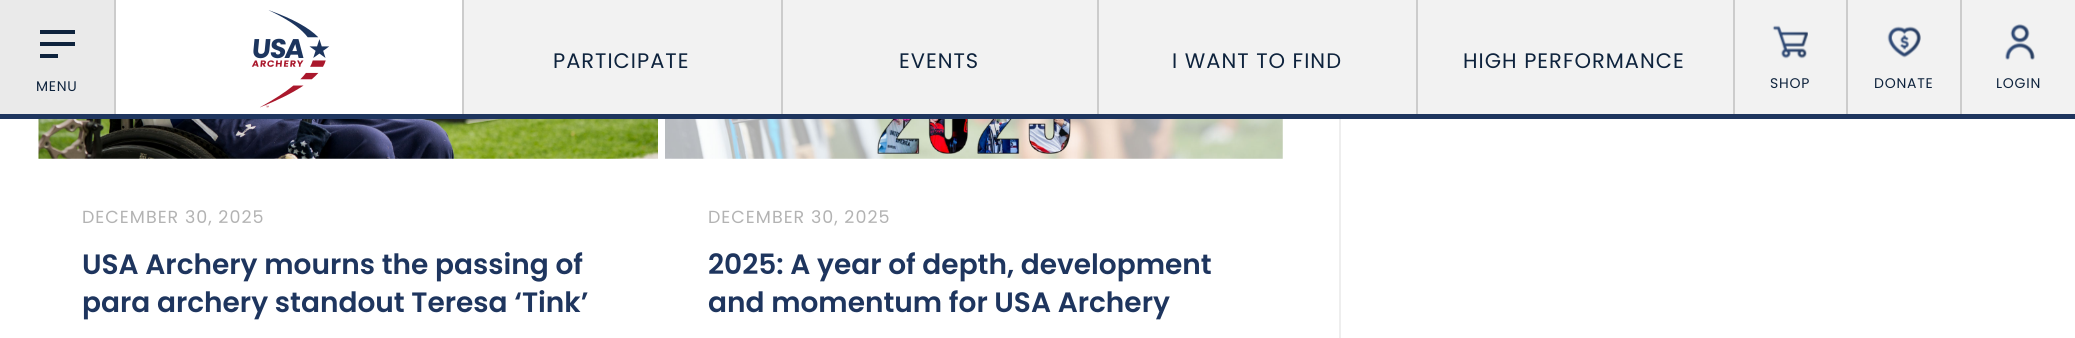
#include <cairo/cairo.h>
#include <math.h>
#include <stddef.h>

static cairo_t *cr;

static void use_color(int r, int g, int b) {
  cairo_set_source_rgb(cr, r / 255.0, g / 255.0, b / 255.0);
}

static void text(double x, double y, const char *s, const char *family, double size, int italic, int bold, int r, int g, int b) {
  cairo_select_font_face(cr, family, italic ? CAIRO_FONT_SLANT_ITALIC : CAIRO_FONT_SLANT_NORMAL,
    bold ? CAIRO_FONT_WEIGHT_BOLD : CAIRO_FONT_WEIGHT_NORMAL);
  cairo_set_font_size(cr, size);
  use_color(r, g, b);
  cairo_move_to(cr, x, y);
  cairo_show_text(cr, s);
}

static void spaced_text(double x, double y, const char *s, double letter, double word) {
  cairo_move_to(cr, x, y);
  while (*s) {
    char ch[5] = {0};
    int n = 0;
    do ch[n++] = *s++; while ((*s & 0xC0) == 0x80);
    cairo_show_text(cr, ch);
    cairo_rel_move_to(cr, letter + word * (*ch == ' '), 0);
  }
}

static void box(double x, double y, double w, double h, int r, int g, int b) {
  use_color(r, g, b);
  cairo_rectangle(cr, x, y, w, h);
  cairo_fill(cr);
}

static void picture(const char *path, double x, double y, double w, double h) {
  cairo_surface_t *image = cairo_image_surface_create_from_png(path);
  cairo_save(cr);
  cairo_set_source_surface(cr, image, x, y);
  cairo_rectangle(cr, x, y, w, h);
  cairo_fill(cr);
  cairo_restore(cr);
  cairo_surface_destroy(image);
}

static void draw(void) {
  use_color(255, 255, 255);
  cairo_paint(cr);
  box(464, 0, 1611, 114, 242, 242, 242);
  box(0, 114, 2075, 5, 30, 53, 94);
  box(462, 0, 2, 114, 204, 204, 204);
  box(114, 0, 2, 114, 204, 204, 204);
  picture("img_01.png", 251, 10, 79, 98);
  box(781, 0, 2, 114, 204, 204, 204);
  box(1097, 0, 2, 114, 204, 204, 204);
  box(1416, 0, 2, 114, 204, 204, 204);
  box(1733, 0, 2, 114, 204, 204, 204);
  box(0, 0, 114, 114, 234, 234, 234);
  box(40, 30, 35, 4, 14, 35, 61);
  box(40, 42, 35, 4, 14, 35, 61);
  box(40, 54, 18, 4, 14, 35, 61);
  box(1846, 0, 2, 114, 204, 204, 204);
  picture("img_02.png", 1772, 25, 36, 34);
  box(1960, 0, 2, 114, 204, 204, 204);
  picture("img_03.png", 1887, 26, 34, 32);
  picture("img_04.png", 2005, 24, 30, 36);
  box(1339, 119, 2, 219, 238, 238, 238);
  picture("img_05.png", 38, 119, 620, 40);
  picture("img_06.png", 665, 119, 618, 40);
  cairo_select_font_face(cr, "Poppins", CAIRO_FONT_SLANT_NORMAL, CAIRO_FONT_WEIGHT_NORMAL);
  cairo_set_font_size(cr, 21);
  use_color(14, 35, 61);
  spaced_text(553, 68, "PARTICIPATE", 1, 0);
  spaced_text(899, 68, "EVENTS", 1, 0);
  spaced_text(1172, 68, "I WANT TO FIND", 1, 0);
  spaced_text(1463, 68, "HIGH PERFORMANCE", 1, 0);
  cairo_set_font_size(cr, 14);
  spaced_text(36, 91, "MENU", 0.75, 0);
  spaced_text(1770, 88, "SHOP", 0.75, 0);
  spaced_text(1874, 88, "DONATE", 0.75, 0);
  spaced_text(1996, 88, "LOGIN", 0.75, 0);
  cairo_set_font_size(cr, 17.5);
  use_color(179, 179, 179);
  spaced_text(82, 223, "DECEMBER 30, 2025", 1, 0);
  text(82, 274, "USA Archery mourns the passing of", "Poppins SemiBold", 28, 0, 0, 30, 53, 94);
  text(82, 312, "para archery standout Teresa ‘Tink’", "Poppins SemiBold", 28, 0, 0, 30, 53, 94);
  cairo_select_font_face(cr, "Poppins", CAIRO_FONT_SLANT_NORMAL, CAIRO_FONT_WEIGHT_NORMAL);
  cairo_set_font_size(cr, 17.5);
  use_color(179, 179, 179);
  spaced_text(708, 223, "DECEMBER 30, 2025", 1, 0);
  text(708, 274, "2025: A year of depth, development", "Poppins SemiBold", 28, 0, 0, 30, 53, 94);
  text(708, 312, "and momentum for USA Archery", "Poppins SemiBold", 28, 0, 0, 30, 53, 94);
}

int main(void) {
  cairo_surface_t *surface = cairo_image_surface_create(CAIRO_FORMAT_RGB24, 2075, 338);
  cr = cairo_create(surface);
  cairo_font_options_t *options = cairo_font_options_create();
  cairo_font_options_set_hint_metrics(options, CAIRO_HINT_METRICS_OFF);
  cairo_font_options_set_hint_style(options, CAIRO_HINT_STYLE_NONE);
  cairo_set_font_options(cr, options);
  cairo_set_miter_limit(cr, 4);
  draw();
  cairo_surface_write_to_png(surface, "out.png");
  cairo_font_options_destroy(options);
  cairo_destroy(cr);
  cairo_surface_destroy(surface);
  return 0;
}
